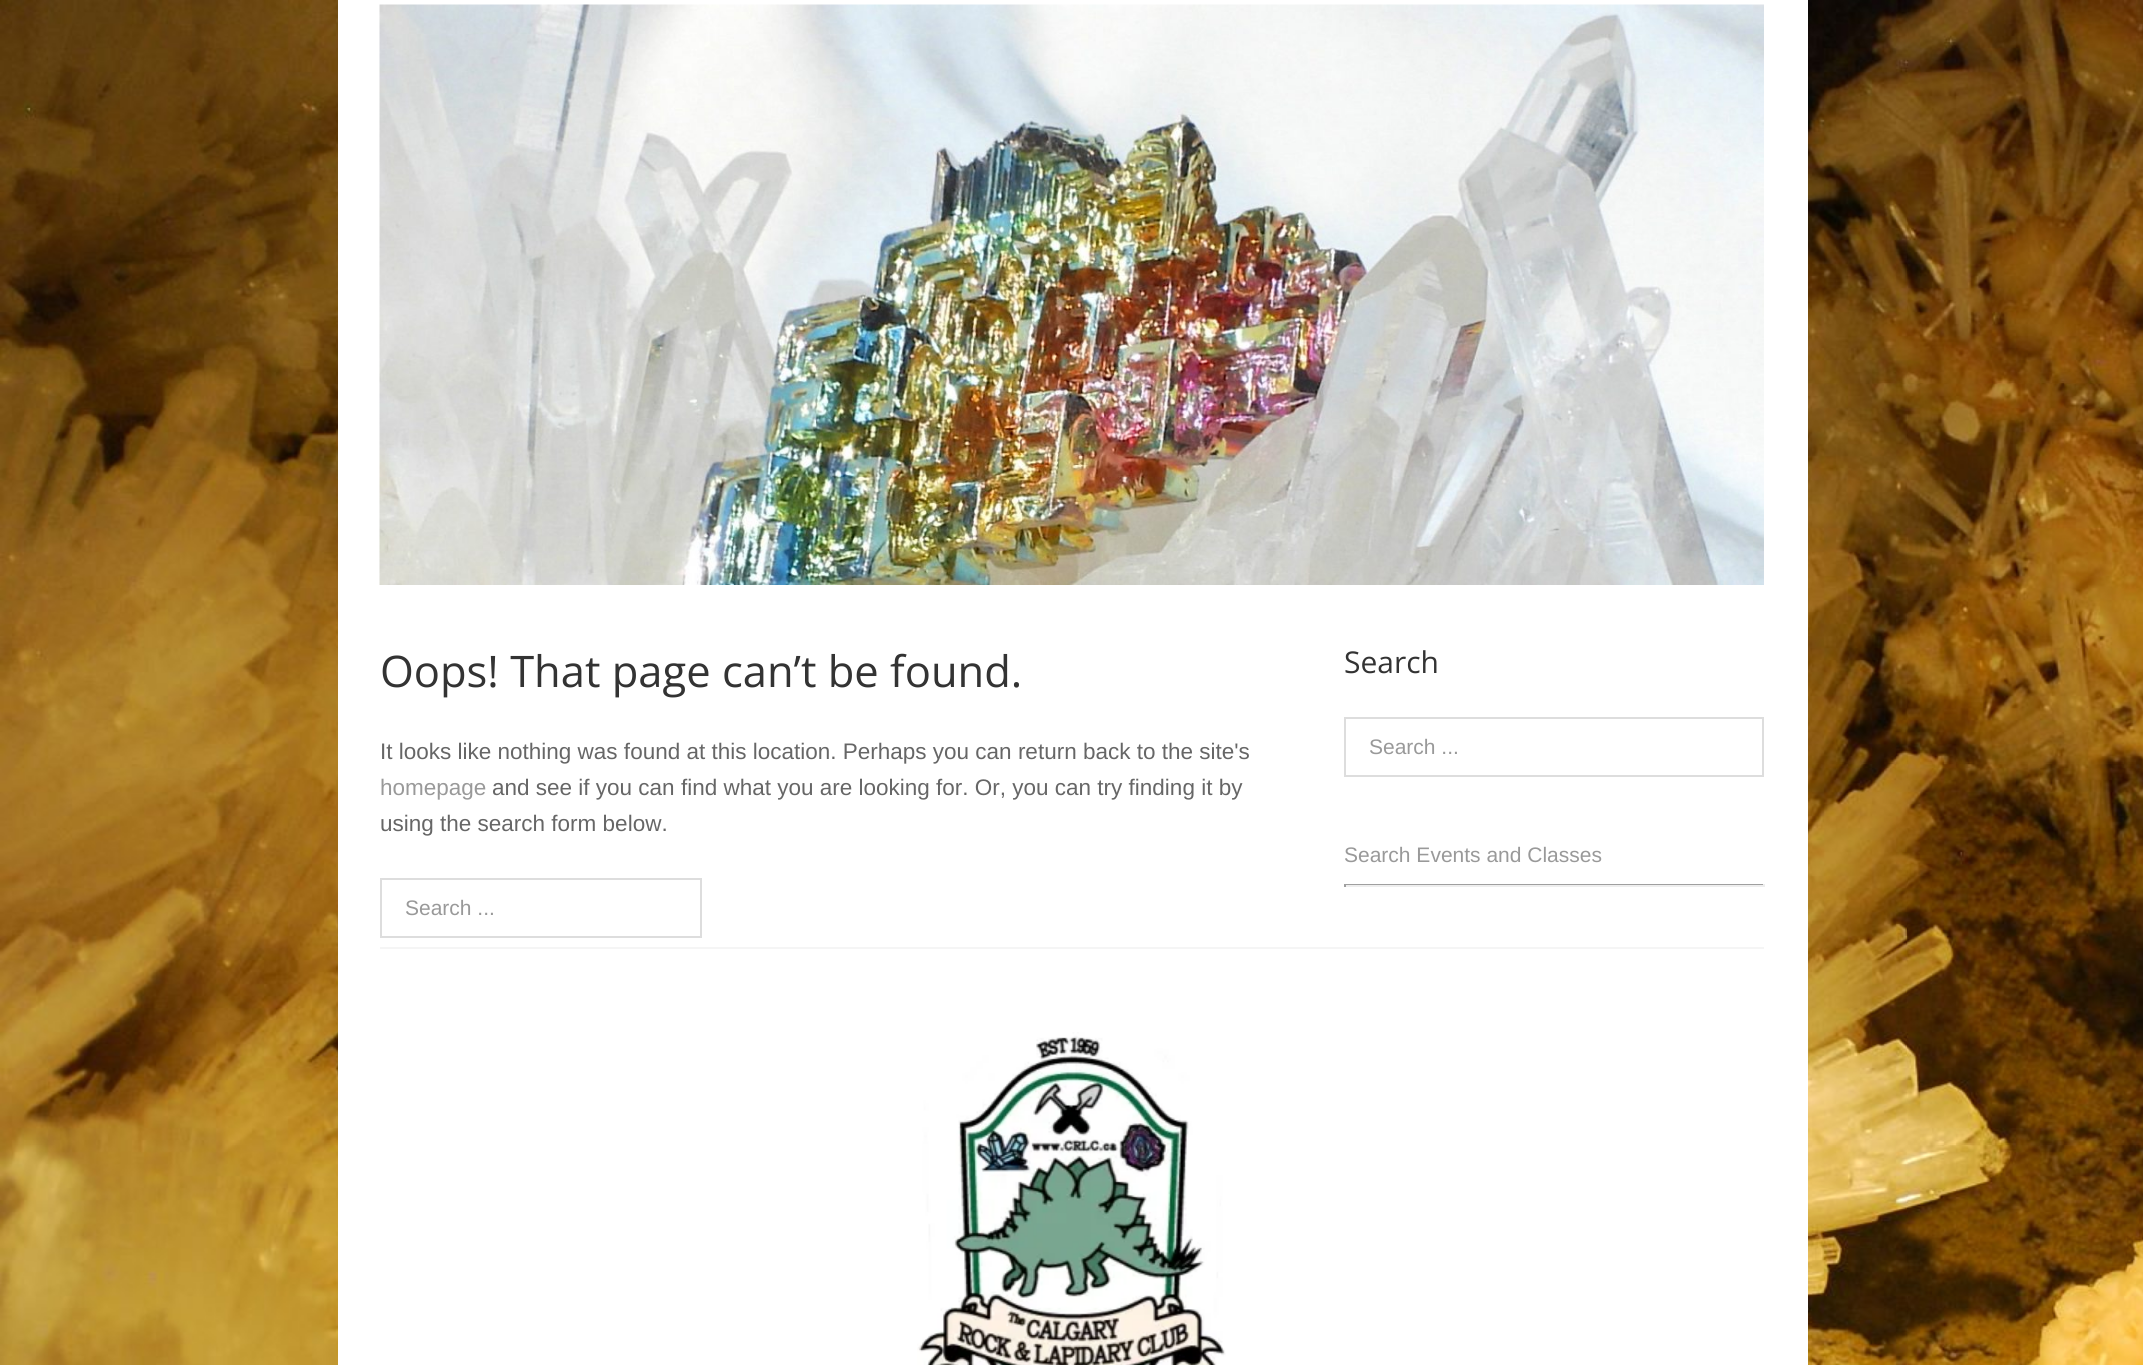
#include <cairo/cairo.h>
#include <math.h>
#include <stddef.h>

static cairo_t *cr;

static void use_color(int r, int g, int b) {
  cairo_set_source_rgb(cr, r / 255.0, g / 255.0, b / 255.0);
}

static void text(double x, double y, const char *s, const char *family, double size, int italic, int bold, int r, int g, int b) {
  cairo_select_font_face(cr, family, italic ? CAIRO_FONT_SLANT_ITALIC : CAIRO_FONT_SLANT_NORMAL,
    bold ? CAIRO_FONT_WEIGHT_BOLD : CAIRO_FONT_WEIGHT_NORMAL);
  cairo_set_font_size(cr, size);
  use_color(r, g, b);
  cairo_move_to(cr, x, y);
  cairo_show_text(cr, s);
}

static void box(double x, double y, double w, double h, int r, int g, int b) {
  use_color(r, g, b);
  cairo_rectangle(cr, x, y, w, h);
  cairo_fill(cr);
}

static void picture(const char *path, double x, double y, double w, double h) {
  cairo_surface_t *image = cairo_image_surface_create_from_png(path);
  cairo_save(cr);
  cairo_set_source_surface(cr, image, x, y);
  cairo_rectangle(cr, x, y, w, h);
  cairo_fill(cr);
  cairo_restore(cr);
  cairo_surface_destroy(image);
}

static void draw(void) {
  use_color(255, 255, 255);
  cairo_paint(cr);
  picture("img_01.png", 0, 0, 2143, 1365);
  box(338, 0, 1470, 1365, 255, 255, 255);
  picture("img_02.png", 379, 4, 1385, 581);
  cairo_rectangle(cr, 381, 879, 320, 58);
  use_color(221, 221, 221);
  cairo_stroke(cr);
  cairo_rectangle(cr, 1345, 718, 418, 58);
  cairo_stroke(cr);
  box(1344, 884, 420, 1, 159, 159, 159);
  box(1763, 884, 2, 3, 238, 238, 238);
  box(1344, 885, 420, 2, 238, 238, 238);
  box(1344, 884, 2, 3, 159, 159, 159);
  box(380, 947, 1384, 2, 245, 245, 245);
  picture("img_03.png", 917, 1032, 309, 333);
  text(380, 687, "Oops! That page can’t be found.", "Open Sans", 43.5, 0, 0, 51, 51, 51);
  text(380, 759, "It looks like nothing was found at this location. Perhaps you can return back to the site's", "Liberation Sans", 22.5, 0, 0, 102, 102, 102);
  text(380, 795, "homepage", "Liberation Sans", 22.5, 0, 0, 153, 153, 153);
  text(492, 795, "and see if you can find what you are looking for. Or, you can try finding it by", "Liberation Sans", 22.5, 0, 0, 102, 102, 102);
  text(380, 831, "using the search form below.", "Liberation Sans", 22.5, 0, 0, 102, 102, 102);
  text(405, 915, "Search ...", "Liberation Sans", 21, 0, 0, 153, 153, 153);
  text(1344, 673, "Search", "Open Sans", 30, 0, 0, 51, 51, 51);
  text(1369, 754, "Search ...", "Liberation Sans", 21, 0, 0, 153, 153, 153);
  text(1344, 862, "Search Events and Classes", "Liberation Sans", 21, 0, 0, 153, 153, 153);
}

int main(void) {
  cairo_surface_t *surface = cairo_image_surface_create(CAIRO_FORMAT_RGB24, 2143, 1365);
  cr = cairo_create(surface);
  cairo_font_options_t *options = cairo_font_options_create();
  cairo_font_options_set_hint_metrics(options, CAIRO_HINT_METRICS_OFF);
  cairo_font_options_set_hint_style(options, CAIRO_HINT_STYLE_NONE);
  cairo_set_font_options(cr, options);
  cairo_set_miter_limit(cr, 4);
  draw();
  cairo_surface_write_to_png(surface, "out.png");
  cairo_font_options_destroy(options);
  cairo_destroy(cr);
  cairo_surface_destroy(surface);
  return 0;
}
